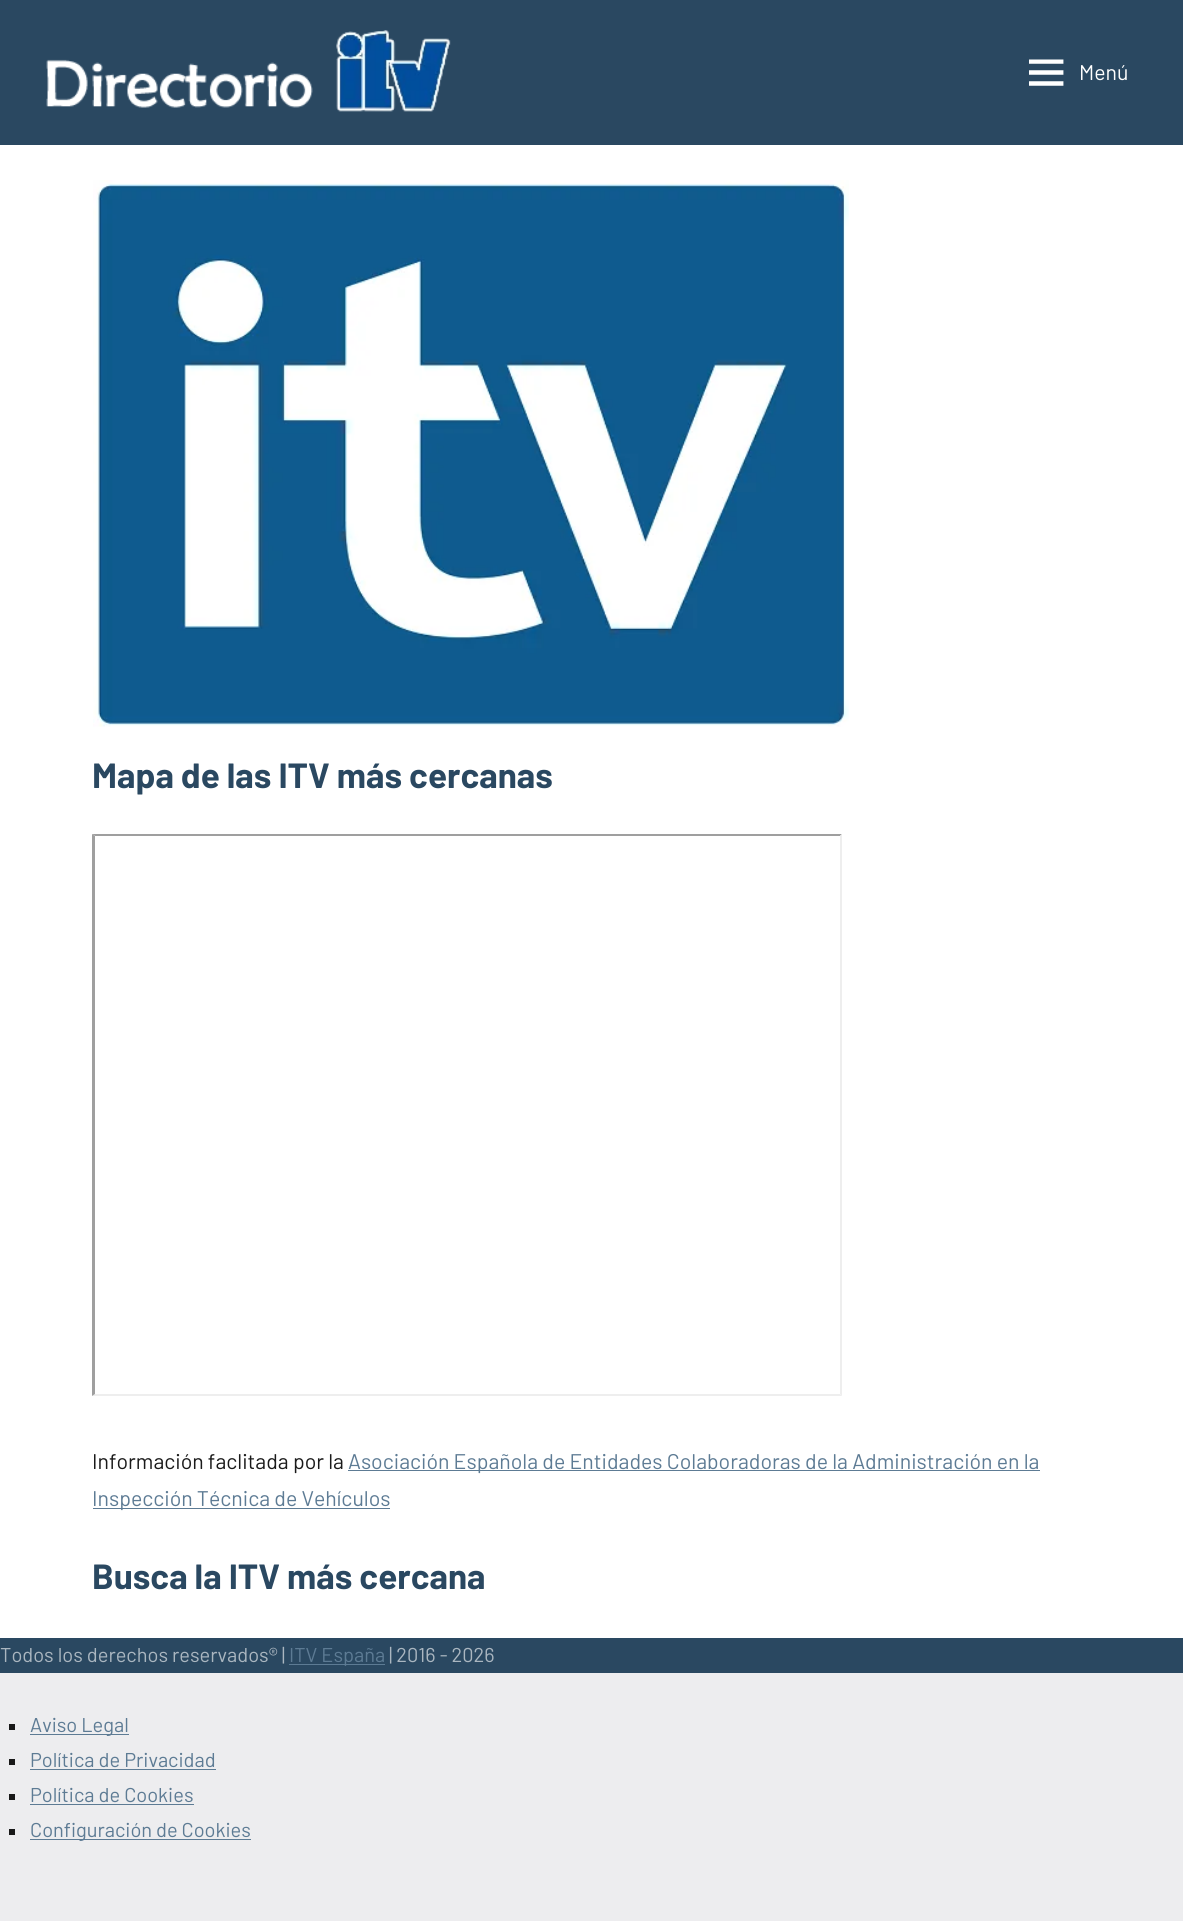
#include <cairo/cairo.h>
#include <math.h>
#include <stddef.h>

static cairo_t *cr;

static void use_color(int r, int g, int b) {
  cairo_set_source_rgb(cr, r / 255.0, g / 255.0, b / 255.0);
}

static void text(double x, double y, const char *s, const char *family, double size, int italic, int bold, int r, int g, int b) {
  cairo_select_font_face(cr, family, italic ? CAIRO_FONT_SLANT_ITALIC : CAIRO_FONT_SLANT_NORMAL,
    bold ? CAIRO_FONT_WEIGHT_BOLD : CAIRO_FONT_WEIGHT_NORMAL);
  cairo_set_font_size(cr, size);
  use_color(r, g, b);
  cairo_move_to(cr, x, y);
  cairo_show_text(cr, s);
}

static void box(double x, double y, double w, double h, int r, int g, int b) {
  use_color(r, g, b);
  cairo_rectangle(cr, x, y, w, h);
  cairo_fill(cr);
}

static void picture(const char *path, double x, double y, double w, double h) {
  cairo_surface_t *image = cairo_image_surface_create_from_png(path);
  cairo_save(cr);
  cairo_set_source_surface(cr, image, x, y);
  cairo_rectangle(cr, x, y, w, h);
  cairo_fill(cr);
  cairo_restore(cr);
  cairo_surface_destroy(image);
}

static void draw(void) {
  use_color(237, 237, 239);
  cairo_paint(cr);
  box(0, 0, 1183, 145, 42, 72, 97);
  picture("img_01.png", 46, 30, 405, 82);
  picture("img_02.png", 1029, 59, 35, 27);
  box(0, 145, 1183, 1493, 255, 255, 255);
  picture("img_03.png", 93, 180, 756, 547);
  use_color(159, 159, 159);
  cairo_new_path(cr);
  cairo_move_to(cr, 92, 834);
  cairo_line_to(cr, 842, 834);
  cairo_line_to(cr, 840, 836);
  cairo_line_to(cr, 95, 836);
  cairo_close_path(cr);
  cairo_fill(cr);
  use_color(238, 238, 238);
  cairo_new_path(cr);
  cairo_move_to(cr, 842, 834);
  cairo_line_to(cr, 842, 1396);
  cairo_line_to(cr, 840, 1394);
  cairo_line_to(cr, 840, 836);
  cairo_close_path(cr);
  cairo_fill(cr);
  cairo_new_path(cr);
  cairo_move_to(cr, 842, 1396);
  cairo_line_to(cr, 92, 1396);
  cairo_line_to(cr, 95, 1394);
  cairo_line_to(cr, 840, 1394);
  cairo_close_path(cr);
  cairo_fill(cr);
  use_color(159, 159, 159);
  cairo_new_path(cr);
  cairo_move_to(cr, 92, 1396);
  cairo_line_to(cr, 92, 834);
  cairo_line_to(cr, 95, 836);
  cairo_line_to(cr, 95, 1394);
  cairo_close_path(cr);
  cairo_fill(cr);
  box(348, 1470, 692, 1, 93, 123, 148);
  box(93, 1508, 297, 1, 93, 123, 148);
  box(0, 1638, 1183, 35, 42, 72, 97);
  box(289, 1664, 96, 1, 93, 123, 148);
  box(9, 1724, 6, 6, 24, 24, 24);
  box(30, 1734, 99, 1, 93, 123, 148);
  box(9, 1759, 6, 6, 24, 24, 24);
  box(30, 1769, 186, 1, 93, 123, 148);
  box(9, 1794, 6, 6, 24, 24, 24);
  box(30, 1804, 164, 1, 93, 123, 148);
  box(9, 1829, 6, 6, 24, 24, 24);
  box(30, 1839, 221, 1, 93, 123, 148);
  text(1079, 80, "Menú", "Barlow", 21.25, 0, 0, 255, 255, 255);
  text(92, 788, "Mapa de las ITV más cercanas", "Barlow", 35, 0, 1, 42, 72, 97);
  text(92, 1469, "Información faclitada por la", "Barlow", 21.25, 0, 0, 26, 26, 26);
  text(348, 1469, "Asociación Española de Entidades Colaboradoras de la Administración en la", "Barlow", 21.25, 0, 0, 93, 123, 148);
  text(92, 1506, "Inspección Técnica de Vehículos", "Barlow", 21.25, 0, 0, 93, 123, 148);
  text(92, 1589, "Busca la ITV más cercana", "Barlow", 35, 0, 1, 42, 72, 97);
  text(0, 1662, "Todos los derechos reservados® |", "Barlow", 20, 0, 0, 170, 182, 192);
  text(289, 1662, "ITV España", "Barlow", 20, 0, 0, 93, 123, 148);
  text(389, 1662, "| 2016 - 2026", "Barlow", 20, 0, 0, 170, 182, 192);
  text(30, 1732, "Aviso Legal", "Barlow", 20, 0, 0, 93, 123, 148);
  text(30, 1767, "Política de Privacidad", "Barlow", 20, 0, 0, 93, 123, 148);
  text(30, 1802, "Política de Cookies", "Barlow", 20, 0, 0, 93, 123, 148);
  text(30, 1837, "Configuración de Cookies", "Barlow", 20, 0, 0, 93, 123, 148);
}

int main(void) {
  cairo_surface_t *surface = cairo_image_surface_create(CAIRO_FORMAT_RGB24, 1183, 1921);
  cr = cairo_create(surface);
  cairo_font_options_t *options = cairo_font_options_create();
  cairo_font_options_set_hint_metrics(options, CAIRO_HINT_METRICS_OFF);
  cairo_font_options_set_hint_style(options, CAIRO_HINT_STYLE_NONE);
  cairo_set_font_options(cr, options);
  cairo_set_miter_limit(cr, 4);
  draw();
  cairo_surface_write_to_png(surface, "out.png");
  cairo_font_options_destroy(options);
  cairo_destroy(cr);
  cairo_surface_destroy(surface);
  return 0;
}
